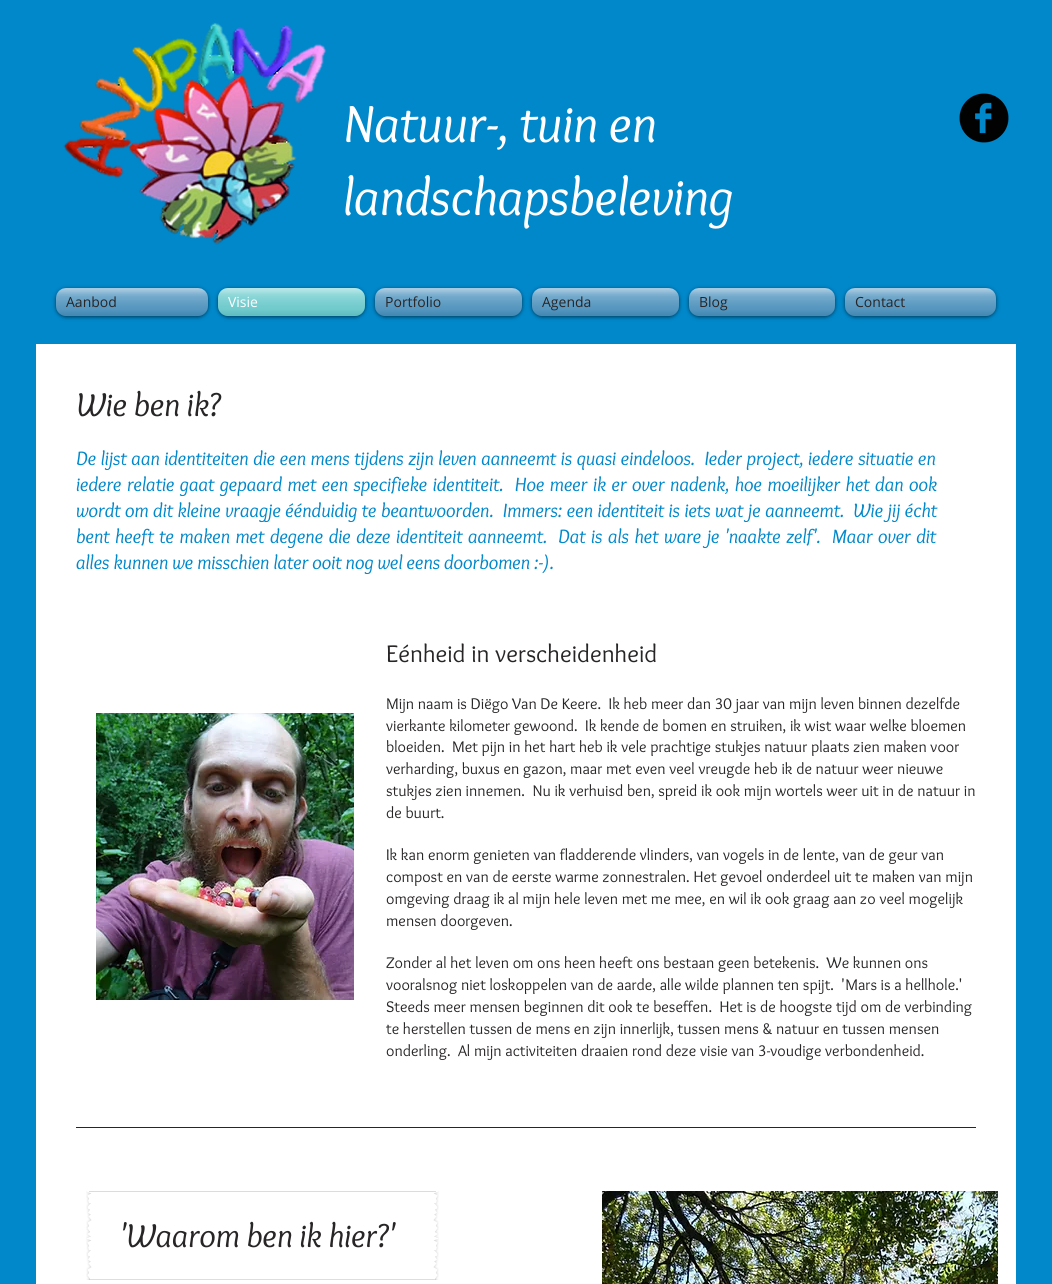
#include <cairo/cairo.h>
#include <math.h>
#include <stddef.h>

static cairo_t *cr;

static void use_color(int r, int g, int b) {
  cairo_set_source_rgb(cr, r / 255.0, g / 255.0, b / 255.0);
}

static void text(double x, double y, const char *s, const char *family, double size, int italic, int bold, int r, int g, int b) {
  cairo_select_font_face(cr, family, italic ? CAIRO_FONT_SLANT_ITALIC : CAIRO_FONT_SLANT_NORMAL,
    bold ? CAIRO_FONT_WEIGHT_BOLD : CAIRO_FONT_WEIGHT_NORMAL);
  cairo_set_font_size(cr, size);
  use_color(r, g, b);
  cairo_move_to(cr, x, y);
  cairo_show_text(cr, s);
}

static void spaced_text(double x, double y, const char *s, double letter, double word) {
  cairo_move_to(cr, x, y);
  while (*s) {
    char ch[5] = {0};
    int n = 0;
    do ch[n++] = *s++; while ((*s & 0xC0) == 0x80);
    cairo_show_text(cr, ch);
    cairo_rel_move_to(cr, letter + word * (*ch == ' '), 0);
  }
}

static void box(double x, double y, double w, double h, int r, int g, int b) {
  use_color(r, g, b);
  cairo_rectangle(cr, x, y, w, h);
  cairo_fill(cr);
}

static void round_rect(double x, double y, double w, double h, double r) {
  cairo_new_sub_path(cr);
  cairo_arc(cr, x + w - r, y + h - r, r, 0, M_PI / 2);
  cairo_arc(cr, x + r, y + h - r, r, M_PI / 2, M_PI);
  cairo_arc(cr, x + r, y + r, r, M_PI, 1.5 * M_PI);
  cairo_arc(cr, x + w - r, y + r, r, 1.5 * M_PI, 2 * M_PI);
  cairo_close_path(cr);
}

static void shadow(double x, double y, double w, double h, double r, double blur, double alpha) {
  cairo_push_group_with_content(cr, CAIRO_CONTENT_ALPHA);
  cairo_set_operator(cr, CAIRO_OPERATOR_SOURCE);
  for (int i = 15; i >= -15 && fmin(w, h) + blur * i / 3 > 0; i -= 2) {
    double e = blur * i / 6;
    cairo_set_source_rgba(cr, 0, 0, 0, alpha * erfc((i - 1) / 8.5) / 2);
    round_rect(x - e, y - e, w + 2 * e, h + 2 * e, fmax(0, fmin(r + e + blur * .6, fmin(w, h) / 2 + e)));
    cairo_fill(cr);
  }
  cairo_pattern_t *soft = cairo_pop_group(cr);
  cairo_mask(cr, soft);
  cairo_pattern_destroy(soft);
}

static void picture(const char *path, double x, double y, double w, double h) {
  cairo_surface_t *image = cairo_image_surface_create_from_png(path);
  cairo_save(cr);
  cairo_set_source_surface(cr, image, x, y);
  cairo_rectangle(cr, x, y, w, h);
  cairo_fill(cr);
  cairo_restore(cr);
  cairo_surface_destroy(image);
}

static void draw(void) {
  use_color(0, 136, 203);
  cairo_paint(cr);
  picture("img_01.png", 63, 22, 264, 223);
  picture("img_02.png", 959, 93, 50, 50);
  use_color(0, 0, 0);
  shadow(56, 289, 152, 28, 10, 2, 0.6);
  use_color(55, 145, 201);
  round_rect(56, 288, 152, 28, 10);
  cairo_fill(cr);
  picture("img_03.png", 56, 288, 152, 28);
  picture("img_04.png", 56, 288, 152, 28);
  use_color(0, 0, 0);
  shadow(218, 289, 147, 28, 10, 2, 0.6);
  use_color(92, 217, 219);
  round_rect(218, 288, 147, 28, 10);
  cairo_fill(cr);
  picture("img_05.png", 218, 288, 147, 28);
  picture("img_06.png", 218, 288, 147, 28);
  use_color(0, 0, 0);
  shadow(375, 289, 147, 28, 10, 2, 0.6);
  use_color(55, 145, 201);
  round_rect(375, 288, 147, 28, 10);
  cairo_fill(cr);
  picture("img_07.png", 375, 288, 147, 28);
  picture("img_08.png", 375, 288, 147, 28);
  use_color(0, 0, 0);
  shadow(532, 289, 147, 28, 10, 2, 0.6);
  use_color(55, 145, 201);
  round_rect(532, 288, 147, 28, 10);
  cairo_fill(cr);
  picture("img_07.png", 532, 288, 147, 28);
  picture("img_08.png", 532, 288, 147, 28);
  use_color(0, 0, 0);
  shadow(689, 289, 146, 28, 10, 2, 0.6);
  use_color(55, 145, 201);
  round_rect(689, 288, 146, 28, 10);
  cairo_fill(cr);
  picture("img_09.png", 689, 288, 146, 28);
  picture("img_10.png", 689, 288, 146, 28);
  use_color(0, 0, 0);
  shadow(845, 289, 151, 28, 10, 2, 0.6);
  use_color(55, 145, 201);
  round_rect(845, 288, 151, 28, 10);
  cairo_fill(cr);
  picture("img_11.png", 845, 288, 151, 28);
  picture("img_12.png", 845, 288, 151, 28);
  box(36, 344, 980, 940, 255, 255, 255);
  picture("img_13.png", 96, 713, 258, 287);
  box(76, 1127, 900, 1, 40, 37, 39);
  picture("img_14.png", 86, 1191, 6, 89);
  box(89, 1191, 347, 1, 220, 220, 220);
  cairo_set_source_rgba(cr, 0, 0, 0, 0.13);
  cairo_rectangle(cr, 89, 1279, 347, 1);
  cairo_fill(cr);
  picture("img_15.png", 433, 1191, 6, 89);
  picture("img_16.png", 602, 1191, 396, 93);
  text(343, 142, "Natuur-, tuin en", "Overlock", 54, 1, 0, 255, 255, 255);
  text(343, 215, "landschapsbeleving", "Overlock", 54, 1, 0, 255, 255, 255);
  text(66, 307, "Aanbod", "Open Sans", 14, 0, 0, 40, 37, 39);
  text(228, 307, "Visie", "Open Sans", 14, 0, 0, 255, 255, 255);
  text(385, 307, "Portfolio", "Open Sans", 14, 0, 0, 40, 37, 39);
  text(542, 307, "Agenda", "Open Sans", 14, 0, 0, 40, 37, 39);
  text(699, 307, "Blog", "Open Sans", 14, 0, 0, 40, 37, 39);
  text(855, 307, "Contact", "Open Sans", 14, 0, 0, 40, 37, 39);
  text(76, 416, "Wie ben ik?", "Overlock", 34, 1, 0, 40, 37, 39);
  cairo_set_font_size(cr, 20);
  use_color(0, 136, 203);
  spaced_text(76, 465, "De lijst aan identiteiten die een mens tijdens zijn leven aanneemt is quasi eindeloos.  Ieder project, iedere situatie en", 0, 0.6);
  spaced_text(76, 491, "iedere relatie gaat gepaard met een specifieke identiteit.  Hoe meer ik er over nadenk, hoe moeilijker het dan ook", 0, 1.5);
  spaced_text(76, 517, "wordt om dit kleine vraagje éénduidig te beantwoorden.  Immers: een identiteit is iets wat je aanneemt.  Wie jij écht", 0, 0.5);
  spaced_text(76, 543, "bent heeft te maken met degene die deze identiteit aanneemt.  Dat is als het ware je 'naakte zelf'.  Maar over dit", 0, 1.55);
  text(76, 569, "alles kunnen we misschien later ooit nog wel eens doorbomen :-).", "Overlock", 20, 1, 0, 0, 136, 203);
  text(386, 662, "Eénheid in verscheidenheid", "Overlock", 25, 0, 0, 40, 37, 39);
  text(386, 709, "Mijn naam is Diëgo Van De Keere.  Ik heb meer dan 30 jaar van mijn leven binnen dezelfde", "Overlock", 16, 0, 0, 40, 37, 39);
  text(386, 731, "vierkante kilometer gewoond.  Ik kende de bomen en struiken, ik wist waar welke bloemen", "Overlock", 16, 0, 0, 40, 37, 39);
  text(386, 752, "bloeiden.  Met pijn in het hart heb ik vele prachtige stukjes natuur plaats zien maken voor", "Overlock", 16, 0, 0, 40, 37, 39);
  text(386, 774, "verharding, buxus en gazon, maar met even veel vreugde heb ik de natuur weer nieuwe", "Overlock", 16, 0, 0, 40, 37, 39);
  text(386, 796, "stukjes zien innemen.  Nu ik verhuisd ben, spreid ik ook mijn wortels weer uit in de natuur in", "Overlock", 16, 0, 0, 40, 37, 39);
  text(386, 818, "de buurt.", "Overlock", 16, 0, 0, 40, 37, 39);
  text(386, 860, "Ik kan enorm genieten van fladderende vlinders, van vogels in de lente, van de geur van", "Overlock", 16, 0, 0, 40, 37, 39);
  text(386, 882, "compost en van de eerste warme zonnestralen. Het gevoel onderdeel uit te maken van mijn", "Overlock", 16, 0, 0, 40, 37, 39);
  text(386, 904, "omgeving draag ik al mijn hele leven met me mee, en wil ik ook graag aan zo veel mogelijk", "Overlock", 16, 0, 0, 40, 37, 39);
  text(386, 926, "mensen doorgeven.", "Overlock", 16, 0, 0, 40, 37, 39);
  text(386, 968, "Zonder al het leven om ons heen heeft ons bestaan geen betekenis.  We kunnen ons", "Overlock", 16, 0, 0, 40, 37, 39);
  text(386, 990, "vooralsnog niet loskoppelen van de aarde, alle wilde plannen ten spijt.  'Mars is a hellhole.'", "Overlock", 16, 0, 0, 40, 37, 39);
  text(386, 1012, "Steeds meer mensen beginnen dit ook te beseffen.  Het is de hoogste tijd om de verbinding", "Overlock", 16, 0, 0, 40, 37, 39);
  text(386, 1034, "te herstellen tussen de mens en zijn innerlijk, tussen mens & natuur en tussen mensen", "Overlock", 16, 0, 0, 40, 37, 39);
  text(386, 1056, "onderling.  Al mijn activiteiten draaien rond deze visie van 3-voudige verbondenheid.", "Overlock", 16, 0, 0, 40, 37, 39);
  text(120, 1247, "'Waarom ben ik hier?'", "Overlock", 34, 1, 0, 40, 37, 39);
}

int main(void) {
  cairo_surface_t *surface = cairo_image_surface_create(CAIRO_FORMAT_RGB24, 1052, 1284);
  cr = cairo_create(surface);
  cairo_font_options_t *options = cairo_font_options_create();
  cairo_font_options_set_hint_metrics(options, CAIRO_HINT_METRICS_OFF);
  cairo_font_options_set_hint_style(options, CAIRO_HINT_STYLE_NONE);
  cairo_set_font_options(cr, options);
  cairo_set_miter_limit(cr, 4);
  draw();
  cairo_surface_write_to_png(surface, "out.png");
  cairo_font_options_destroy(options);
  cairo_destroy(cr);
  cairo_surface_destroy(surface);
  return 0;
}
